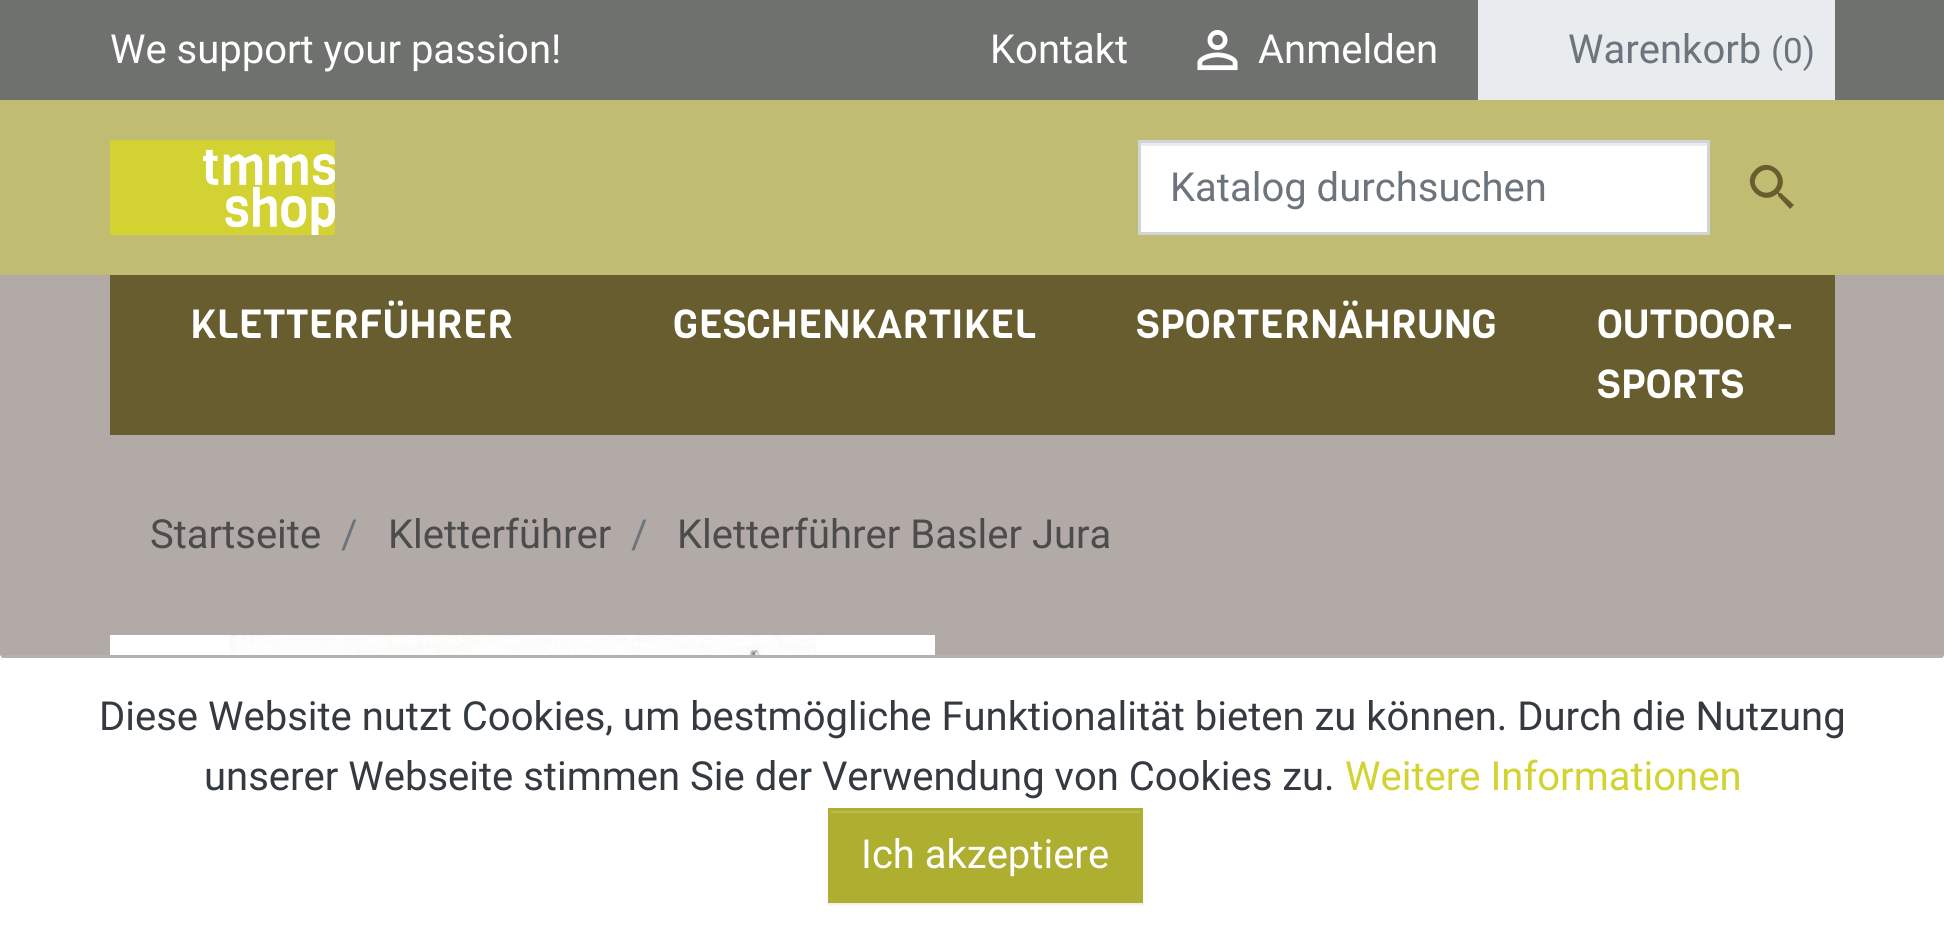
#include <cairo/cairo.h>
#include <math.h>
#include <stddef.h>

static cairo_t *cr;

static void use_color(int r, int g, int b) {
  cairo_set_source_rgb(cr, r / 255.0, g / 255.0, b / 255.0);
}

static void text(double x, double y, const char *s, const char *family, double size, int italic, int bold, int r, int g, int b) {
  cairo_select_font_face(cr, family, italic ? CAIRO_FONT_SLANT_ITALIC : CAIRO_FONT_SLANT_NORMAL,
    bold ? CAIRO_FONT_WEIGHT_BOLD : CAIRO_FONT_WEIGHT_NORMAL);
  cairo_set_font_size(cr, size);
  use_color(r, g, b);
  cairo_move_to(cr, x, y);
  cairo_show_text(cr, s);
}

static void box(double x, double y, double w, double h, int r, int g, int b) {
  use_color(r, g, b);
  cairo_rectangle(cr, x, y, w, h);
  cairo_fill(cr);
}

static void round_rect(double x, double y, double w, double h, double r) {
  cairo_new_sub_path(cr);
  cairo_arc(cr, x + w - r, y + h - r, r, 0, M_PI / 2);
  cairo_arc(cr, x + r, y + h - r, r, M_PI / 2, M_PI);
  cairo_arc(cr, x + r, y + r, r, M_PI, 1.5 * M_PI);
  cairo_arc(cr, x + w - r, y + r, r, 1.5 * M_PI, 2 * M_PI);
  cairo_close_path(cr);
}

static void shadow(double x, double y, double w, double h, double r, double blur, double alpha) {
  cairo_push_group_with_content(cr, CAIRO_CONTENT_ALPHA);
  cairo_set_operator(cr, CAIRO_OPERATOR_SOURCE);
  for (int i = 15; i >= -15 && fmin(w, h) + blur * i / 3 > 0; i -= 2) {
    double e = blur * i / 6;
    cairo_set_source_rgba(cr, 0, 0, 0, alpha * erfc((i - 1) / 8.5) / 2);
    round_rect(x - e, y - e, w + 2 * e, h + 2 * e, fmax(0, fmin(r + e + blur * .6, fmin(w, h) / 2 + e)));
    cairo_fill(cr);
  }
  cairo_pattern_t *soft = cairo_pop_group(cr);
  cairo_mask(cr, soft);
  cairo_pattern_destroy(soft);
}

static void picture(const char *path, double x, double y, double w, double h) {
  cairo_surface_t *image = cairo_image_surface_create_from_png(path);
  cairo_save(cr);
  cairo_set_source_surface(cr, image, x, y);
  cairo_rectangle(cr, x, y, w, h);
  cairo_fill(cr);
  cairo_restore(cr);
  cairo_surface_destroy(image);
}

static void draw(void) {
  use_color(178, 170, 167);
  cairo_paint(cr);
  box(0, 0, 1944, 100, 110, 113, 110);
  picture("img_01.png", 1197, 30, 41, 41);
  box(1478, 0, 357, 100, 233, 236, 239);
  box(0, 100, 1944, 175, 192, 188, 114);
  picture("img_02.png", 110, 140, 225, 95);
  box(1141, 146, 566, 86, 255, 255, 255);
  box(1140, 143, 568, 3, 236, 236, 236);
  cairo_rectangle(cr, 1139.5, 141.5, 569, 92);
  use_color(206, 212, 218);
  cairo_set_line_width(cr, 3);
  cairo_stroke(cr);
  use_color(103, 93, 47);
  cairo_new_path(cr);
  cairo_move_to(cr, 1758, 189);
  cairo_curve_to(cr, 1769, 200, 1785, 184, 1774, 173);
  cairo_curve_to(cr, 1764, 163, 1748, 179, 1758, 189);
  cairo_close_path(cr);
  cairo_move_to(cr, 1781, 193);
  cairo_line_to(cr, 1794, 205);
  cairo_line_to(cr, 1790, 209);
  cairo_line_to(cr, 1778, 196);
  cairo_line_to(cr, 1778, 194);
  cairo_line_to(cr, 1777, 194);
  cairo_curve_to(cr, 1761, 207, 1740, 184, 1755, 170);
  cairo_curve_to(cr, 1769, 155, 1792, 176, 1779, 192);
  cairo_line_to(cr, 1779, 193);
  cairo_close_path(cr);
  cairo_fill(cr);
  box(110, 275, 1725, 160, 103, 93, 47);
  box(110, 635, 825, 20, 255, 255, 255);
  picture("img_03.png", 229, 635, 590, 20);
  box(0, 655, 1944, 278, 255, 255, 255);
  use_color(182, 175, 173);
  cairo_new_path(cr);
  cairo_move_to(cr, 0, 655);
  cairo_line_to(cr, 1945, 655);
  cairo_line_to(cr, 1942, 658);
  cairo_line_to(cr, 2, 658);
  cairo_close_path(cr);
  cairo_fill(cr);
  use_color(0, 0, 0);
  shadow(828, 810, 315, 95, 0, 1, 0.07);
  box(831, 813, 309, 87, 174, 174, 48);
  box(830, 811, 310, 2, 186, 186, 79);
  cairo_rectangle(cr, 829.5, 809.5, 312, 92);
  use_color(174, 174, 48);
  cairo_stroke(cr);
  text(110, 63, "We support your passion!", "Roboto", 40, 0, 0, 255, 255, 255);
  text(990, 63, "Kontakt", "Roboto", 40, 0, 0, 255, 255, 255);
  text(1258, 63, "Anmelden", "Roboto", 40, 0, 0, 255, 255, 255);
  text(1568, 63, "Warenkorb", "Roboto", 40, 0, 0, 108, 117, 125);
  text(1771, 63, "(0)", "Roboto", 35, 0, 0, 108, 117, 125);
  text(1170, 201, "Katalog durchsuchen", "Roboto", 40, 0, 0, 108, 117, 125);
  text(190, 338, "KLETTERFÜHRER", "Viga", 40, 0, 0, 255, 255, 255);
  text(673, 338, "GESCHENKARTIKEL", "Viga", 40, 0, 0, 255, 255, 255);
  text(1136, 338, "SPORTERNÄHRUNG", "Viga", 40, 0, 0, 255, 255, 255);
  text(1597, 338, "OUTDOOR-", "Viga", 40, 0, 0, 255, 255, 255);
  text(1597, 398, "SPORTS", "Viga", 40, 0, 0, 255, 255, 255);
  text(150, 548, "Startseite", "Roboto", 40, 0, 0, 76, 76, 76);
  text(341, 548, "/", "Roboto", 40, 0, 0, 108, 117, 125);
  text(388, 548, "Kletterführer", "Roboto", 40, 0, 0, 76, 76, 76);
  text(631, 548, "/", "Roboto", 40, 0, 0, 108, 117, 125);
  text(677, 548, "Kletterführer Basler Jura", "Roboto", 40, 0, 0, 76, 76, 76);
  text(99, 730, "Diese Website nutzt Cookies, um bestmögliche Funktionalität bieten zu können. Durch die Nutzung", "Roboto", 40, 0, 0, 52, 58, 64);
  text(204, 790, "unserer Webseite stimmen Sie der Verwendung von Cookies zu.", "Roboto", 40, 0, 0, 52, 58, 64);
  text(1345, 790, "Weitere Informationen", "Roboto", 40, 0, 0, 210, 210, 49);
  text(861, 868, "Ich akzeptiere", "Roboto", 40, 0, 0, 255, 255, 255);
}

int main(void) {
  cairo_surface_t *surface = cairo_image_surface_create(CAIRO_FORMAT_RGB24, 1944, 933);
  cr = cairo_create(surface);
  cairo_font_options_t *options = cairo_font_options_create();
  cairo_font_options_set_hint_metrics(options, CAIRO_HINT_METRICS_OFF);
  cairo_font_options_set_hint_style(options, CAIRO_HINT_STYLE_NONE);
  cairo_set_font_options(cr, options);
  cairo_set_miter_limit(cr, 4);
  draw();
  cairo_surface_write_to_png(surface, "out.png");
  cairo_font_options_destroy(options);
  cairo_destroy(cr);
  cairo_surface_destroy(surface);
  return 0;
}
